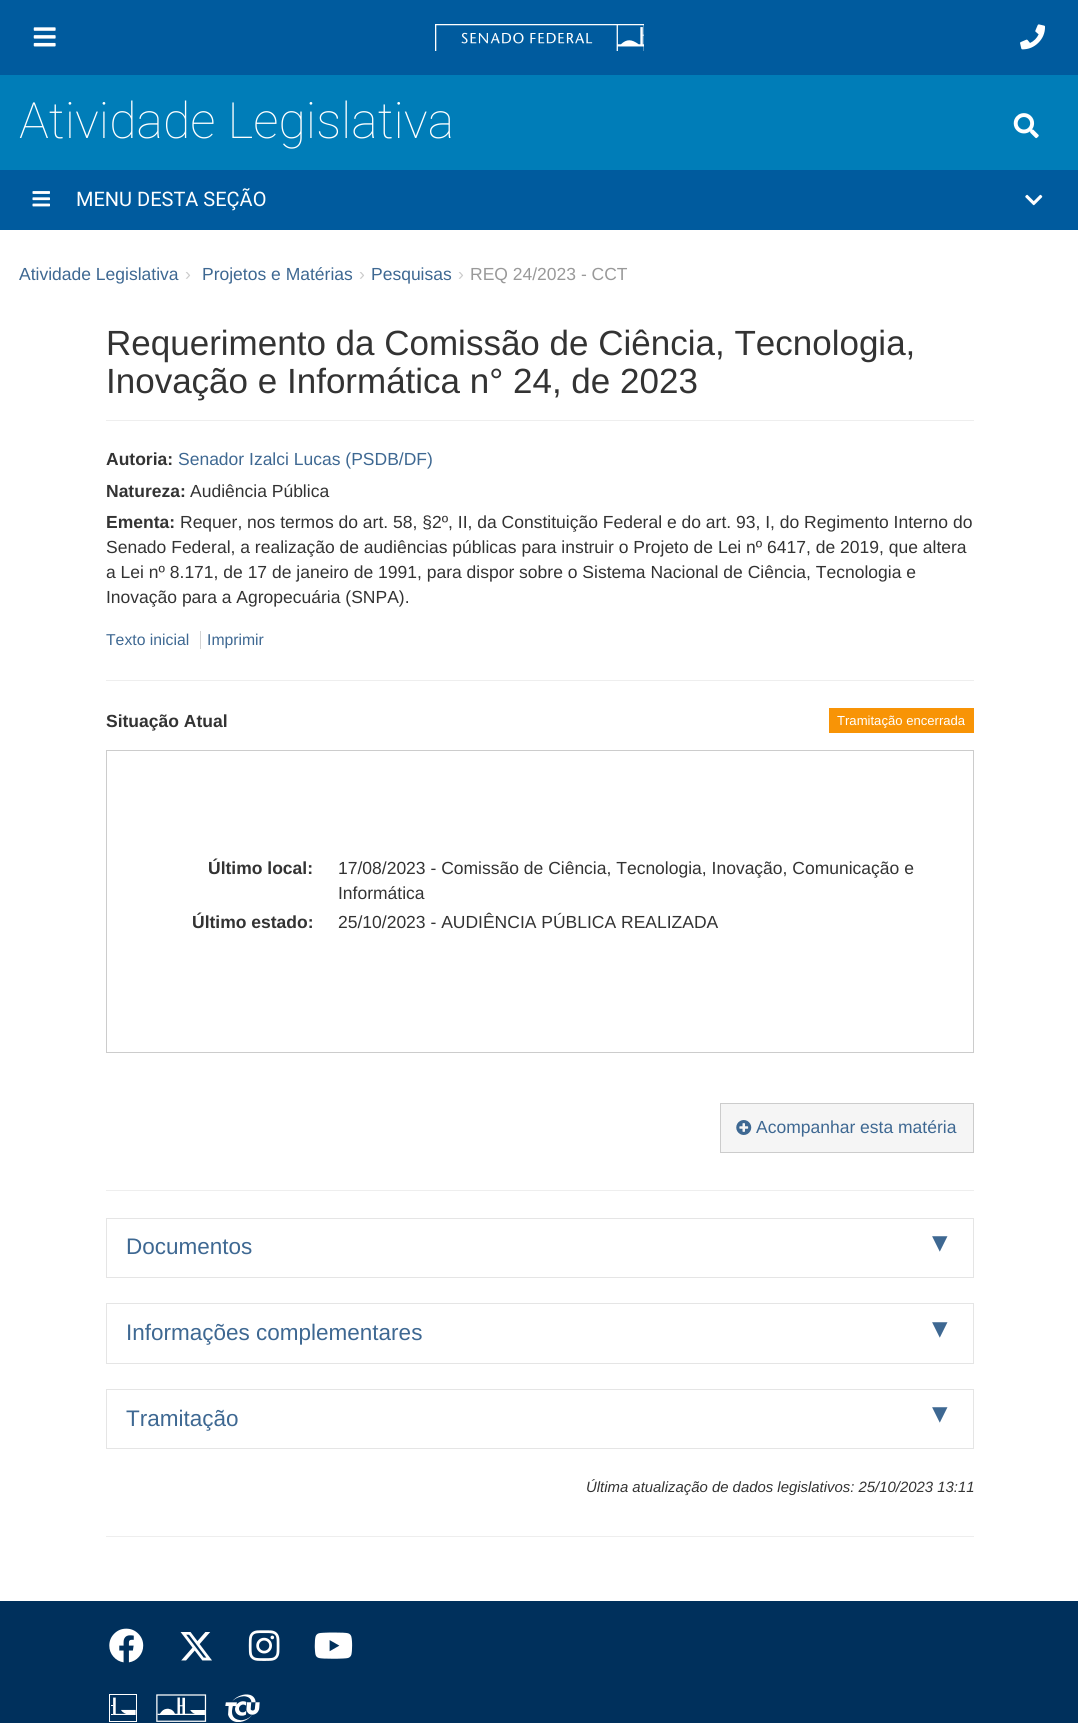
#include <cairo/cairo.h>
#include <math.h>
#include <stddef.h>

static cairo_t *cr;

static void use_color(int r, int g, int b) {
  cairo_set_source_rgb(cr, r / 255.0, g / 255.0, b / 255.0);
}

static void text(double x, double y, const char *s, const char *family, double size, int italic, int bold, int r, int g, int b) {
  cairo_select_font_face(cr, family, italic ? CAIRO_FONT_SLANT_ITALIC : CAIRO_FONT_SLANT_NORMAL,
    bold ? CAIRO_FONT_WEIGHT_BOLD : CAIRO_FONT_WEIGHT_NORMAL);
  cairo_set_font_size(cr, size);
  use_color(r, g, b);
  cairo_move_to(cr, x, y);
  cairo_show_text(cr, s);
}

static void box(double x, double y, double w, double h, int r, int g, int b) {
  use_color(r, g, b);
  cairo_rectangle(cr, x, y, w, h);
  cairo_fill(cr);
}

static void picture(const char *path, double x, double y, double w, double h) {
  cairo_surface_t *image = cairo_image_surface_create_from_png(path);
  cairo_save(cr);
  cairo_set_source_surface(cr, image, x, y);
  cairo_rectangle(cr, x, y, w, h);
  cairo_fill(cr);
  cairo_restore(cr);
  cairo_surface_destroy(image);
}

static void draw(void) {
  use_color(255, 255, 255);
  cairo_paint(cr);
  box(0, 0, 1078, 75, 0, 91, 158);
  picture("img_01.png", 33, 27, 23, 20);
  picture("img_02.png", 435, 24, 209, 27);
  picture("img_03.png", 1020, 24, 25, 26);
  box(0, 75, 1078, 95, 0, 125, 184);
  picture("img_04.png", 1013, 113, 26, 26);
  box(0, 170, 1078, 60, 0, 91, 158);
  picture("img_05.png", 32, 191, 18, 16);
  picture("img_06.png", 1025, 194, 18, 12);
  box(106, 420, 868, 1, 238, 238, 238);
  box(200, 631, 1, 18, 211, 211, 211);
  box(106, 680, 868, 1, 238, 238, 238);
  box(829, 708, 145, 25, 248, 148, 6);
  cairo_rectangle(cr, 106.5, 750.5, 867, 302);
  use_color(204, 204, 204);
  cairo_set_line_width(cr, 1);
  cairo_stroke(cr);
  use_color(245, 245, 245);
  cairo_rectangle(cr, 720.5, 1103.5, 253, 49);
  cairo_fill_preserve(cr);
  use_color(204, 204, 204);
  cairo_stroke(cr);
  picture("img_07.png", 736, 1120, 16, 15);
  box(106, 1190, 868, 1, 238, 238, 238);
  cairo_rectangle(cr, 106.5, 1218.5, 867, 59);
  use_color(229, 229, 229);
  cairo_stroke(cr);
  cairo_rectangle(cr, 106.5, 1303.5, 867, 60);
  cairo_stroke(cr);
  cairo_rectangle(cr, 106.5, 1389.5, 867, 59);
  cairo_stroke(cr);
  box(106, 1536, 868, 1, 238, 238, 238);
  box(0, 1601, 1078, 122, 0, 48, 92);
  picture("img_08.png", 109, 1628, 35, 35);
  picture("img_09.png", 180, 1632, 32, 29);
  picture("img_10.png", 248, 1630, 32, 31);
  picture("img_11.png", 314, 1632, 39, 27);
  picture("img_12.png", 109, 1694, 28, 28);
  picture("img_13.png", 156, 1694, 51, 28);
  picture("img_14.png", 225, 1694, 35, 28);
  text(19, 138, "Atividade Legislativa", "Roboto Thin", 50, 0, 0, 255, 255, 255);
  text(76, 206, "MENU DESTA SEÇÃO", "Roboto", 20, 0, 0, 255, 255, 255);
  text(19, 280, "Atividade Legislativa", "Liberation Sans", 17.5, 0, 0, 62, 104, 146);
  text(185, 280, "›", "Liberation Sans", 17.5, 0, 0, 204, 204, 204);
  text(202, 280, "Projetos e Matérias", "Liberation Sans", 17.5, 0, 0, 62, 104, 146);
  text(359, 280, "›", "Liberation Sans", 17.5, 0, 0, 204, 204, 204);
  text(371, 280, "Pesquisas", "Liberation Sans", 17.5, 0, 0, 62, 104, 146);
  text(458, 280, "›", "Liberation Sans", 17.5, 0, 0, 204, 204, 204);
  text(470, 280, "REQ 24/2023 - CCT", "Liberation Sans", 17.5, 0, 0, 153, 153, 153);
  text(106, 355, "Requerimento da Comissão de Ciência, Tecnologia,", "Liberation Sans", 35, 0, 0, 51, 51, 51);
  text(106, 393, "Inovação e Informática n° 24, de 2023", "Liberation Sans", 35, 0, 0, 51, 51, 51);
  text(106, 465, "Autoria:", "Liberation Sans", 17.5, 0, 1, 51, 51, 51);
  text(178, 465, "Senador Izalci Lucas (PSDB/DF)", "Liberation Sans", 17.5, 0, 0, 62, 104, 146);
  text(106, 497, "Natureza:", "Liberation Sans", 17.5, 0, 1, 51, 51, 51);
  text(190, 497, "Audiência Pública", "Liberation Sans", 17.5, 0, 0, 51, 51, 51);
  text(106, 528, "Ementa:", "Liberation Sans", 17.5, 0, 1, 51, 51, 51);
  text(180, 528, "Requer, nos termos do art. 58, §2º, II, da Constituição Federal e do art. 93, I, do Regimento Interno do", "Liberation Sans", 17.5, 0, 0, 51, 51, 51);
  text(106, 553, "Senado Federal, a realização de audiências públicas para instruir o Projeto de Lei nº 6417, de 2019, que altera", "Liberation Sans", 17.5, 0, 0, 51, 51, 51);
  text(106, 578, "a Lei nº 8.171, de 17 de janeiro de 1991, para dispor sobre o Sistema Nacional de Ciência, Tecnologia e", "Liberation Sans", 17.5, 0, 0, 51, 51, 51);
  text(106, 603, "Inovação para a Agropecuária (SNPA).", "Liberation Sans", 17.5, 0, 0, 51, 51, 51);
  text(106, 645, "Texto inicial", "Liberation Sans", 15.75, 0, 0, 62, 104, 146);
  text(207, 645, "Imprimir", "Liberation Sans", 15.75, 0, 0, 62, 104, 146);
  text(106, 727, "Situação Atual", "Liberation Sans", 17.5, 0, 1, 51, 51, 51);
  text(837, 725, "Tramitação encerrada", "Liberation Sans", 13.1, 0, 0, 255, 255, 255);
  text(208, 874, "Último local:", "Liberation Sans", 17.5, 0, 1, 51, 51, 51);
  text(338, 874, "17/08/2023 - Comissão de Ciência, Tecnologia, Inovação, Comunicação e", "Liberation Sans", 17.5, 0, 0, 51, 51, 51);
  text(338, 899, "Informática", "Liberation Sans", 17.5, 0, 0, 51, 51, 51);
  text(192, 928, "Último estado:", "Liberation Sans", 17.5, 0, 1, 51, 51, 51);
  text(338, 928, "25/10/2023 - AUDIÊNCIA PÚBLICA REALIZADA", "Liberation Sans", 17.5, 0, 0, 51, 51, 51);
  text(756, 1133, "Acompanhar esta matéria", "Liberation Sans", 17.5, 0, 0, 62, 104, 146);
  text(126, 1254, "Documentos", "Liberation Sans", 22.5, 0, 0, 62, 104, 146);
  text(932, 1252, "▾", "DejaVu Sans", 31, 0, 0, 62, 104, 146);
  text(126, 1340, "Informações complementares", "Liberation Sans", 22.5, 0, 0, 62, 104, 146);
  text(932, 1338, "▾", "DejaVu Sans", 31, 0, 0, 62, 104, 146);
  text(126, 1426, "Tramitação", "Liberation Sans", 22.5, 0, 0, 62, 104, 146);
  text(932, 1423, "▾", "DejaVu Sans", 31, 0, 0, 62, 104, 146);
  text(586, 1492, "Última atualização de dados legislativos: 25/10/2023 13:11", "Liberation Sans", 14.9, 1, 0, 51, 51, 51);
}

int main(void) {
  cairo_surface_t *surface = cairo_image_surface_create(CAIRO_FORMAT_RGB24, 1078, 1723);
  cr = cairo_create(surface);
  cairo_font_options_t *options = cairo_font_options_create();
  cairo_font_options_set_hint_metrics(options, CAIRO_HINT_METRICS_OFF);
  cairo_font_options_set_hint_style(options, CAIRO_HINT_STYLE_NONE);
  cairo_set_font_options(cr, options);
  cairo_set_miter_limit(cr, 4);
  draw();
  cairo_surface_write_to_png(surface, "out.png");
  cairo_font_options_destroy(options);
  cairo_destroy(cr);
  cairo_surface_destroy(surface);
  return 0;
}
